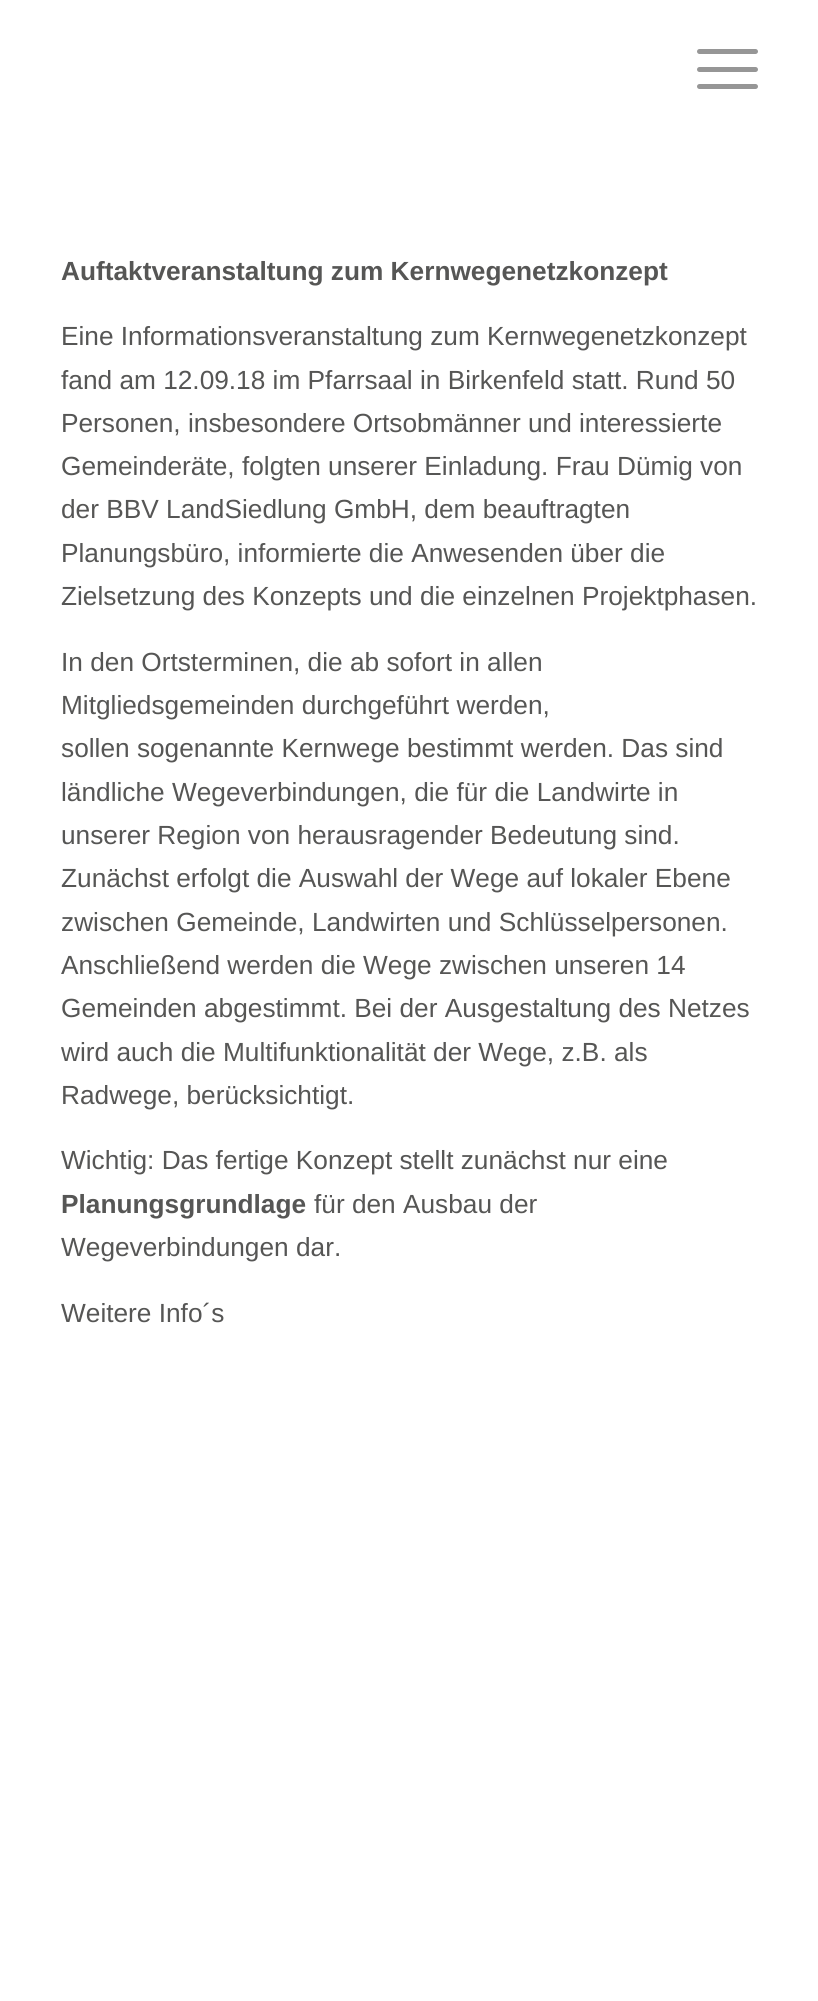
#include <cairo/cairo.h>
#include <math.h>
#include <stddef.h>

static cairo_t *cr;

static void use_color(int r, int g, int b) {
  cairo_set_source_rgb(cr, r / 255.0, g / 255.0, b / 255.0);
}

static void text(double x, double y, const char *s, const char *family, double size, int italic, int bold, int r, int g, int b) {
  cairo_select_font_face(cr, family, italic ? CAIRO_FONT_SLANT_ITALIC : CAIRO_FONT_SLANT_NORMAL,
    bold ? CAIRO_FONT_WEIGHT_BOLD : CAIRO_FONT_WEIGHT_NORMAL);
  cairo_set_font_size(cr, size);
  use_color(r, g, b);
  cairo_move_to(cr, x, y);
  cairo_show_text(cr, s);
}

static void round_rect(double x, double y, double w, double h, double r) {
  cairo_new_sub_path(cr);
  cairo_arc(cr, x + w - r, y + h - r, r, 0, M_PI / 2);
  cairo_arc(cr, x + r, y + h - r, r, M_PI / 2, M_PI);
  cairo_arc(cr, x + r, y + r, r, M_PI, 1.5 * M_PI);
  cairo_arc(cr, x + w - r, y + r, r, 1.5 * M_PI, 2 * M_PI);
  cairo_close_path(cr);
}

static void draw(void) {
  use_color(255, 255, 255);
  cairo_paint(cr);
  use_color(150, 150, 150);
  round_rect(697, 67, 61, 5, 2.5);
  cairo_fill(cr);
  round_rect(697, 49, 61, 5, 2.5);
  cairo_fill(cr);
  round_rect(697, 84, 61, 5, 2.5);
  cairo_fill(cr);
  text(61, 280, "Auftaktveranstaltung zum Kernwegenetzkonzept", "Liberation Sans", 26.25, 0, 1, 86, 86, 85);
  text(61, 345, "Eine Informationsveranstaltung zum Kernwegenetzkonzept", "Liberation Sans", 26.25, 0, 0, 86, 86, 85);
  text(61, 389, "fand am 12.09.18 im Pfarrsaal in Birkenfeld statt. Rund 50", "Liberation Sans", 26.25, 0, 0, 86, 86, 85);
  text(61, 432, "Personen, insbesondere Ortsobmänner und interessierte", "Liberation Sans", 26.25, 0, 0, 86, 86, 85);
  text(61, 475, "Gemeinderäte, folgten unserer Einladung. Frau Dümig von", "Liberation Sans", 26.25, 0, 0, 86, 86, 85);
  text(61, 518, "der BBV LandSiedlung GmbH, dem beauftragten", "Liberation Sans", 26.25, 0, 0, 86, 86, 85);
  text(61, 562, "Planungsbüro, informierte die Anwesenden über die", "Liberation Sans", 26.25, 0, 0, 86, 86, 85);
  text(61, 605, "Zielsetzung des Konzepts und die einzelnen Projektphasen.", "Liberation Sans", 26.25, 0, 0, 86, 86, 85);
  text(61, 671, "In den Ortsterminen, die ab sofort in allen", "Liberation Sans", 26.25, 0, 0, 86, 86, 85);
  text(61, 714, "Mitgliedsgemeinden durchgeführt werden,", "Liberation Sans", 26.25, 0, 0, 86, 86, 85);
  text(61, 757, "sollen sogenannte Kernwege bestimmt werden. Das sind", "Liberation Sans", 26.25, 0, 0, 86, 86, 85);
  text(61, 801, "ländliche Wegeverbindungen, die für die Landwirte in", "Liberation Sans", 26.25, 0, 0, 86, 86, 85);
  text(61, 844, "unserer Region von herausragender Bedeutung sind.", "Liberation Sans", 26.25, 0, 0, 86, 86, 85);
  text(61, 887, "Zunächst erfolgt die Auswahl der Wege auf lokaler Ebene", "Liberation Sans", 26.25, 0, 0, 86, 86, 85);
  text(61, 931, "zwischen Gemeinde, Landwirten und Schlüsselpersonen.", "Liberation Sans", 26.25, 0, 0, 86, 86, 85);
  text(61, 974, "Anschließend werden die Wege zwischen unseren 14", "Liberation Sans", 26.25, 0, 0, 86, 86, 85);
  text(61, 1017, "Gemeinden abgestimmt. Bei der Ausgestaltung des Netzes", "Liberation Sans", 26.25, 0, 0, 86, 86, 85);
  text(61, 1061, "wird auch die Multifunktionalität der Wege, z.B. als", "Liberation Sans", 26.25, 0, 0, 86, 86, 85);
  text(61, 1104, "Radwege, berücksichtigt.", "Liberation Sans", 26.25, 0, 0, 86, 86, 85);
  text(61, 1169, "Wichtig: Das fertige Konzept stellt zunächst nur eine", "Liberation Sans", 26.25, 0, 0, 86, 86, 85);
  text(61, 1213, "Planungsgrundlage", "Liberation Sans", 26.25, 0, 1, 86, 86, 85);
  text(314, 1213, "für den Ausbau der", "Liberation Sans", 26.25, 0, 0, 86, 86, 85);
  text(61, 1256, "Wegeverbindungen dar.", "Liberation Sans", 26.25, 0, 0, 86, 86, 85);
  text(61, 1322, "Weitere Info´s", "Liberation Sans", 26.25, 0, 0, 86, 86, 85);
}

int main(void) {
  cairo_surface_t *surface = cairo_image_surface_create(CAIRO_FORMAT_RGB24, 818, 2001);
  cr = cairo_create(surface);
  cairo_font_options_t *options = cairo_font_options_create();
  cairo_font_options_set_hint_metrics(options, CAIRO_HINT_METRICS_OFF);
  cairo_font_options_set_hint_style(options, CAIRO_HINT_STYLE_NONE);
  cairo_set_font_options(cr, options);
  cairo_set_miter_limit(cr, 4);
  draw();
  cairo_surface_write_to_png(surface, "out.png");
  cairo_font_options_destroy(options);
  cairo_destroy(cr);
  cairo_surface_destroy(surface);
  return 0;
}
